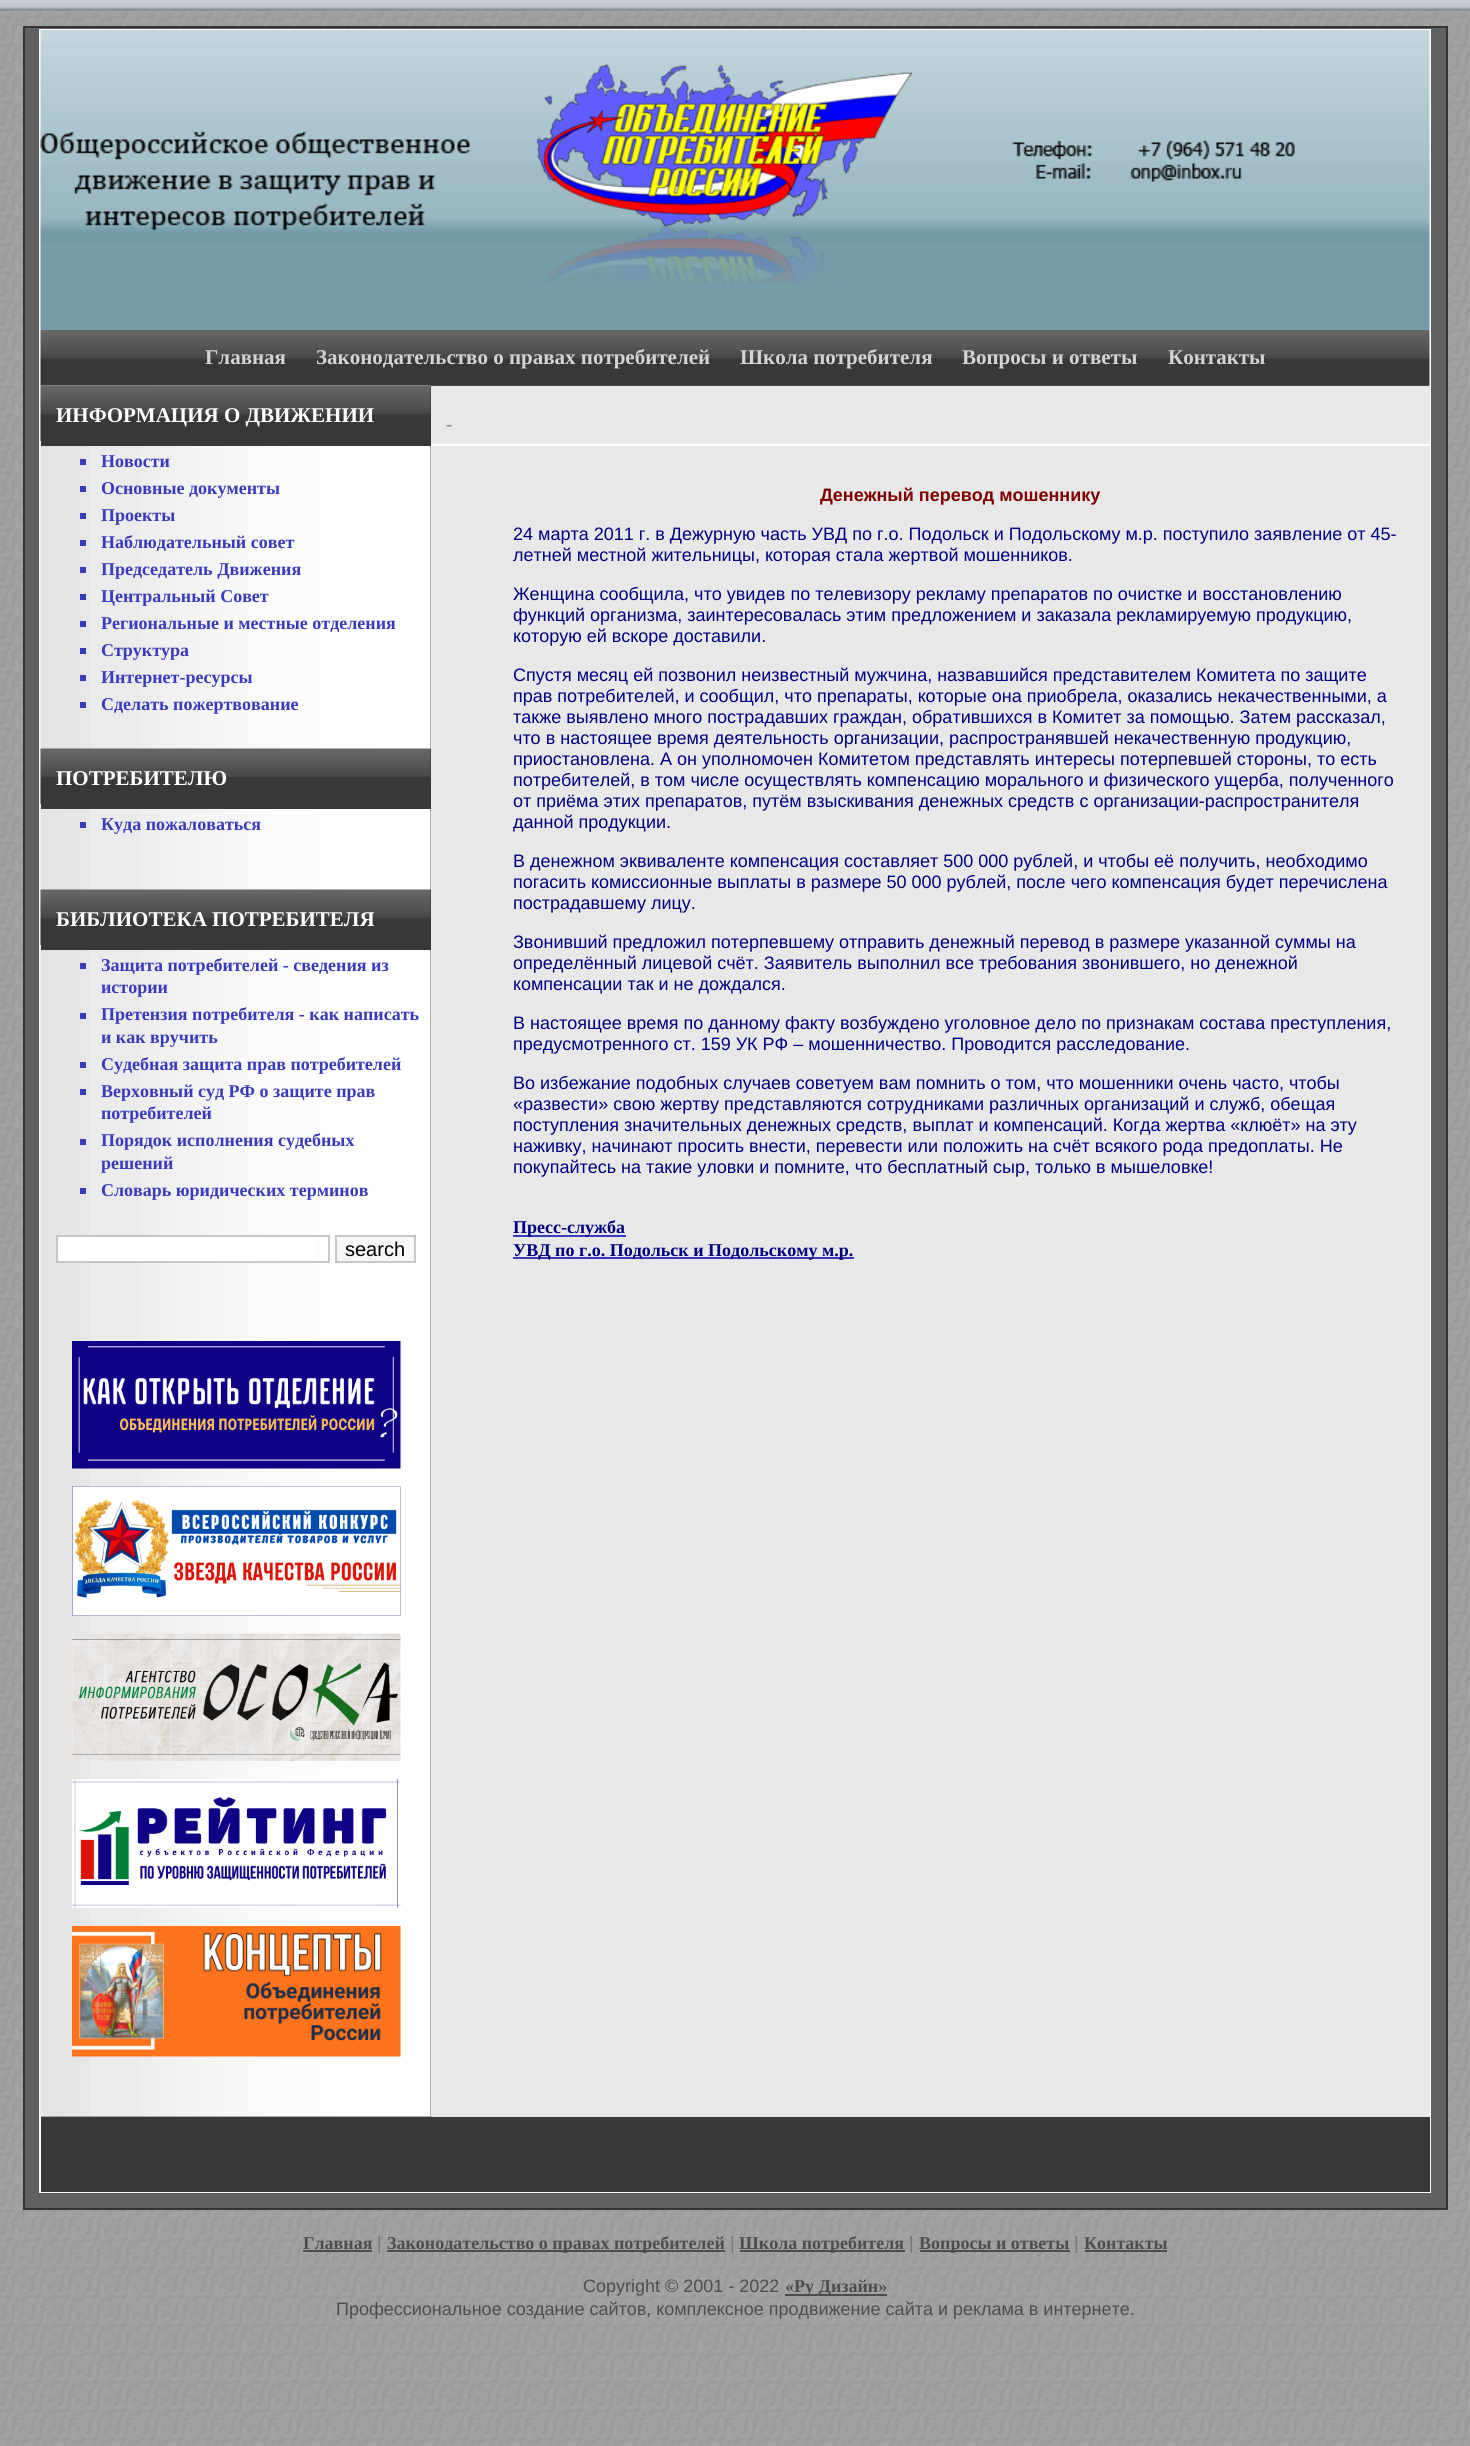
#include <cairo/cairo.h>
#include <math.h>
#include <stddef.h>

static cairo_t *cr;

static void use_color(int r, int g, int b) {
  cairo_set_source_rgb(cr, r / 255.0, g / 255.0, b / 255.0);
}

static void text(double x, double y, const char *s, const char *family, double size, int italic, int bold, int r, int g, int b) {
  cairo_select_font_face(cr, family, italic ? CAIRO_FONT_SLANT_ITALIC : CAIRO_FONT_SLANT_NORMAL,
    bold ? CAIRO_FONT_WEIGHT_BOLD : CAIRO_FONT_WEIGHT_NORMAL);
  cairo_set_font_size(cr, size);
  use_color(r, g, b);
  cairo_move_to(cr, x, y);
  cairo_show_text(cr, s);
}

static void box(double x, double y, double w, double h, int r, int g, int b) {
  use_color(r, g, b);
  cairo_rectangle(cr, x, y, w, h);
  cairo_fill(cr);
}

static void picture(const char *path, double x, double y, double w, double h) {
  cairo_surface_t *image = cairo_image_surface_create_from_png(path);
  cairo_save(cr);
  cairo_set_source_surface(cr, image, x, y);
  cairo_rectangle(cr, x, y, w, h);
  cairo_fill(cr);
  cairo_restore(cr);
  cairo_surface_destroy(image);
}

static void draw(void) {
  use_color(255, 255, 255);
  cairo_paint(cr);
  picture("img_01.png", 0, 10, 1470, 2436);
  picture("img_02.png", 0, 0, 1470, 11);
  use_color(98, 97, 97);
  cairo_rectangle(cr, 24, 27, 1423, 2182);
  cairo_fill_preserve(cr);
  use_color(52, 52, 52);
  cairo_stroke(cr);
  cairo_rectangle(cr, 40, 30, 1390, 2162);
  use_color(255, 255, 255);
  cairo_stroke(cr);
  picture("img_03.png", 40, 30, 1390, 300);
  picture("img_04.png", 40, 131, 430, 99);
  picture("img_05.png", 537, 64, 375, 219);
  picture("img_06.png", 1012, 140, 283, 42);
  picture("img_07.png", 40, 330, 1390, 56);
  picture("img_08.png", 40, 385, 391, 1732);
  box(41, 386, 390, 60, 56, 56, 56);
  picture("img_09.png", 40, 385, 391, 56);
  box(80, 459, 6, 6, 58, 58, 188);
  box(80, 486, 6, 6, 58, 58, 188);
  box(80, 513, 6, 6, 58, 58, 188);
  box(80, 540, 6, 6, 58, 58, 188);
  box(80, 567, 6, 6, 58, 58, 188);
  box(80, 594, 6, 6, 58, 58, 188);
  box(80, 621, 6, 6, 58, 58, 188);
  box(80, 648, 6, 6, 58, 58, 188);
  box(80, 675, 6, 6, 58, 58, 188);
  box(80, 702, 6, 6, 58, 58, 188);
  box(41, 749, 390, 60, 56, 56, 56);
  picture("img_10.png", 40, 748, 391, 56);
  box(80, 822, 6, 6, 58, 58, 188);
  box(41, 890, 390, 60, 56, 56, 56);
  picture("img_11.png", 40, 889, 391, 56);
  box(80, 963, 6, 6, 58, 58, 188);
  box(80, 1013, 6, 6, 58, 58, 188);
  box(80, 1062, 6, 6, 58, 58, 188);
  box(80, 1089, 6, 6, 58, 58, 188);
  box(80, 1139, 6, 6, 58, 58, 188);
  box(80, 1188, 6, 6, 58, 58, 188);
  box(58, 1237, 258, 24, 255, 255, 255);
  cairo_rectangle(cr, 57, 1236, 272, 26);
  use_color(199, 199, 199);
  cairo_stroke(cr);
  use_color(247, 247, 247);
  cairo_rectangle(cr, 336, 1236, 79, 26);
  cairo_fill_preserve(cr);
  use_color(199, 199, 199);
  cairo_stroke(cr);
  picture("img_12.png", 72, 1341, 329, 128);
  picture("img_13.png", 72, 1486, 329, 130);
  picture("img_14.png", 72, 1633, 329, 128);
  picture("img_15.png", 72, 1779, 329, 129);
  picture("img_16.png", 72, 1926, 329, 131);
  box(431, 386, 999, 1731, 232, 232, 232);
  box(431, 444, 999, 2, 255, 255, 255);
  box(513, 1235, 113, 2, 58, 58, 188);
  box(513, 1257, 341, 2, 58, 58, 188);
  box(41, 2117, 1389, 75, 56, 56, 56);
  box(303, 2250, 69, 2, 78, 77, 77);
  box(387, 2250, 338, 2, 78, 77, 77);
  box(740, 2250, 165, 2, 78, 77, 77);
  box(920, 2250, 150, 2, 78, 77, 77);
  box(1085, 2250, 82, 2, 78, 77, 77);
  box(785, 2294, 102, 2, 78, 77, 77);
  text(205, 364, "Главная", "Liberation Serif", 21, 0, 1, 212, 212, 212);
  text(316, 364, "Законодательство о правах потребителей", "Liberation Serif", 21, 0, 1, 212, 212, 212);
  text(740, 364, "Школа потребителя", "Liberation Serif", 21, 0, 1, 212, 212, 212);
  text(962, 364, "Вопросы и ответы", "Liberation Serif", 21, 0, 1, 212, 212, 212);
  text(1168, 364, "Контакты", "Liberation Serif", 21, 0, 1, 212, 212, 212);
  text(56, 422, "ИНФОРМАЦИЯ О ДВИЖЕНИИ", "Liberation Serif", 21, 0, 1, 255, 255, 255);
  text(101, 467, "Новости", "Liberation Serif", 18, 0, 1, 58, 58, 188);
  text(101, 494, "Основные документы", "Liberation Serif", 18, 0, 1, 58, 58, 188);
  text(101, 521, "Проекты", "Liberation Serif", 18, 0, 1, 58, 58, 188);
  text(101, 548, "Наблюдательный совет", "Liberation Serif", 18, 0, 1, 58, 58, 188);
  text(101, 575, "Председатель Движения", "Liberation Serif", 18, 0, 1, 58, 58, 188);
  text(101, 602, "Центральный Совет", "Liberation Serif", 18, 0, 1, 58, 58, 188);
  text(101, 629, "Региональные и местные отделения", "Liberation Serif", 18, 0, 1, 58, 58, 188);
  text(101, 656, "Структура", "Liberation Serif", 18, 0, 1, 58, 58, 188);
  text(101, 683, "Интернет-ресурсы", "Liberation Serif", 18, 0, 1, 58, 58, 188);
  text(101, 710, "Сделать пожертвование", "Liberation Serif", 18, 0, 1, 58, 58, 188);
  text(56, 785, "ПОТРЕБИТЕЛЮ", "Liberation Serif", 21, 0, 1, 255, 255, 255);
  text(101, 830, "Куда пожаловаться", "Liberation Serif", 18, 0, 1, 58, 58, 188);
  text(56, 926, "БИБЛИОТЕКА ПОТРЕБИТЕЛЯ", "Liberation Serif", 21, 0, 1, 255, 255, 255);
  text(101, 971, "Защита потребителей - сведения из", "Liberation Serif", 18, 0, 1, 58, 58, 188);
  text(101, 993, "истории", "Liberation Serif", 18, 0, 1, 58, 58, 188);
  text(101, 1020, "Претензия потребителя - как написать", "Liberation Serif", 18, 0, 1, 58, 58, 188);
  text(101, 1043, "и как вручить", "Liberation Serif", 18, 0, 1, 58, 58, 188);
  text(101, 1070, "Судебная защита прав потребителей", "Liberation Serif", 18, 0, 1, 58, 58, 188);
  text(101, 1097, "Верховный суд РФ о защите прав", "Liberation Serif", 18, 0, 1, 58, 58, 188);
  text(101, 1119, "потребителей", "Liberation Serif", 18, 0, 1, 58, 58, 188);
  text(101, 1146, "Порядок исполнения судебных", "Liberation Serif", 18, 0, 1, 58, 58, 188);
  text(101, 1169, "решений", "Liberation Serif", 18, 0, 1, 58, 58, 188);
  text(101, 1196, "Словарь юридических терминов", "Liberation Serif", 18, 0, 1, 58, 58, 188);
  text(345, 1256, "search", "Liberation Sans", 20, 0, 0, 0, 0, 0);
  text(446, 430, "-", "Liberation Serif", 18, 0, 1, 140, 139, 139);
  text(820, 501, "Денежный перевод мошеннику", "Liberation Sans", 18, 0, 1, 128, 0, 0);
  text(513, 540, "24 марта 2011 г. в Дежурную часть УВД по г.о. Подольск и Подольскому м.р. поступило заявление от 45-", "Liberation Sans", 18, 0, 0, 0, 0, 128);
  text(513, 561, "летней местной жительницы, которая стала жертвой мошенников.", "Liberation Sans", 18, 0, 0, 0, 0, 128);
  text(513, 600, "Женщина сообщила, что увидев по телевизору рекламу препаратов по очистке и восстановлению", "Liberation Sans", 18, 0, 0, 0, 0, 128);
  text(513, 621, "функций организма, заинтересовалась этим предложением и заказала рекламируемую продукцию,", "Liberation Sans", 18, 0, 0, 0, 0, 128);
  text(513, 642, "которую ей вскоре доставили.", "Liberation Sans", 18, 0, 0, 0, 0, 128);
  text(513, 681, "Спустя месяц ей позвонил неизвестный мужчина, назвавшийся представителем Комитета по защите", "Liberation Sans", 18, 0, 0, 0, 0, 128);
  text(513, 702, "прав потребителей, и сообщил, что препараты, которые она приобрела, оказались некачественными, а", "Liberation Sans", 18, 0, 0, 0, 0, 128);
  text(513, 723, "также выявлено много пострадавших граждан, обратившихся в Комитет за помощью. Затем рассказал,", "Liberation Sans", 18, 0, 0, 0, 0, 128);
  text(513, 744, "что в настоящее время деятельность организации, распространявшей некачественную продукцию,", "Liberation Sans", 18, 0, 0, 0, 0, 128);
  text(513, 765, "приостановлена. А он уполномочен Комитетом представлять интересы потерпевшей стороны, то есть", "Liberation Sans", 18, 0, 0, 0, 0, 128);
  text(513, 786, "потребителей, в том числе осуществлять компенсацию морального и физического ущерба, полученного", "Liberation Sans", 18, 0, 0, 0, 0, 128);
  text(513, 807, "от приёма этих препаратов, путём взыскивания денежных средств с организации-распространителя", "Liberation Sans", 18, 0, 0, 0, 0, 128);
  text(513, 828, "данной продукции.", "Liberation Sans", 18, 0, 0, 0, 0, 128);
  text(513, 867, "В денежном эквиваленте компенсация составляет 500 000 рублей, и чтобы её получить, необходимо", "Liberation Sans", 18, 0, 0, 0, 0, 128);
  text(513, 888, "погасить комиссионные выплаты в размере 50 000 рублей, после чего компенсация будет перечислена", "Liberation Sans", 18, 0, 0, 0, 0, 128);
  text(513, 909, "пострадавшему лицу.", "Liberation Sans", 18, 0, 0, 0, 0, 128);
  text(513, 948, "Звонивший предложил потерпевшему отправить денежный перевод в размере указанной суммы на", "Liberation Sans", 18, 0, 0, 0, 0, 128);
  text(513, 969, "определённый лицевой счёт. Заявитель выполнил все требования звонившего, но денежной", "Liberation Sans", 18, 0, 0, 0, 0, 128);
  text(513, 990, "компенсации так и не дождался.", "Liberation Sans", 18, 0, 0, 0, 0, 128);
  text(513, 1029, "В настоящее время по данному факту возбуждено уголовное дело по признакам состава преступления,", "Liberation Sans", 18, 0, 0, 0, 0, 128);
  text(513, 1050, "предусмотренного ст. 159 УК РФ – мошенничество. Проводится расследование.", "Liberation Sans", 18, 0, 0, 0, 0, 128);
  text(513, 1089, "Во избежание подобных случаев советуем вам помнить о том, что мошенники очень часто, чтобы", "Liberation Sans", 18, 0, 0, 0, 0, 128);
  text(513, 1110, "«развести» свою жертву представляются сотрудниками различных организаций и служб, обещая", "Liberation Sans", 18, 0, 0, 0, 0, 128);
  text(513, 1131, "поступления значительных денежных средств, выплат и компенсаций. Когда жертва «клюёт» на эту", "Liberation Sans", 18, 0, 0, 0, 0, 128);
  text(513, 1152, "наживку, начинают просить внести, перевести или положить на счёт всякого рода предоплаты. Не", "Liberation Sans", 18, 0, 0, 0, 0, 128);
  text(513, 1173, "покупайтесь на такие уловки и помните, что бесплатный сыр, только в мышеловке!", "Liberation Sans", 18, 0, 0, 0, 0, 128);
  text(513, 1233, "Пресс-служба", "Liberation Serif", 18, 0, 1, 0, 0, 128);
  text(513, 1256, "УВД по г.о. Подольск и Подольскому м.р.", "Liberation Serif", 18, 0, 1, 0, 0, 128);
  text(303, 2249, "Главная", "Liberation Serif", 18, 0, 1, 78, 77, 77);
  text(377, 2249, "|", "Liberation Sans", 18, 0, 0, 118, 118, 118);
  text(387, 2249, "Законодательство о правах потребителей", "Liberation Serif", 18, 0, 1, 78, 77, 77);
  text(730, 2249, "|", "Liberation Sans", 18, 0, 0, 118, 118, 118);
  text(739, 2249, "Школа потребителя", "Liberation Serif", 18, 0, 1, 78, 77, 77);
  text(909, 2249, "|", "Liberation Sans", 18, 0, 0, 118, 118, 118);
  text(919, 2249, "Вопросы и ответы", "Liberation Serif", 18, 0, 1, 78, 77, 77);
  text(1074, 2249, "|", "Liberation Sans", 18, 0, 0, 118, 118, 118);
  text(1084, 2249, "Контакты", "Liberation Serif", 18, 0, 1, 78, 77, 77);
  text(583, 2292, "Copyright © 2001 - 2022", "Liberation Sans", 18, 0, 0, 78, 77, 77);
  text(785, 2292, "«Ру Дизайн»", "Liberation Serif", 18, 0, 1, 78, 77, 77);
  text(336, 2315, "Профессиональное создание сайтов, комплексное продвижение сайта и реклама в интернете.", "Liberation Sans", 18, 0, 0, 78, 77, 77);
}

int main(void) {
  cairo_surface_t *surface = cairo_image_surface_create(CAIRO_FORMAT_RGB24, 1470, 2446);
  cr = cairo_create(surface);
  cairo_font_options_t *options = cairo_font_options_create();
  cairo_font_options_set_hint_metrics(options, CAIRO_HINT_METRICS_OFF);
  cairo_font_options_set_hint_style(options, CAIRO_HINT_STYLE_NONE);
  cairo_set_font_options(cr, options);
  cairo_set_miter_limit(cr, 4);
  draw();
  cairo_surface_write_to_png(surface, "out.png");
  cairo_font_options_destroy(options);
  cairo_destroy(cr);
  cairo_surface_destroy(surface);
  return 0;
}
